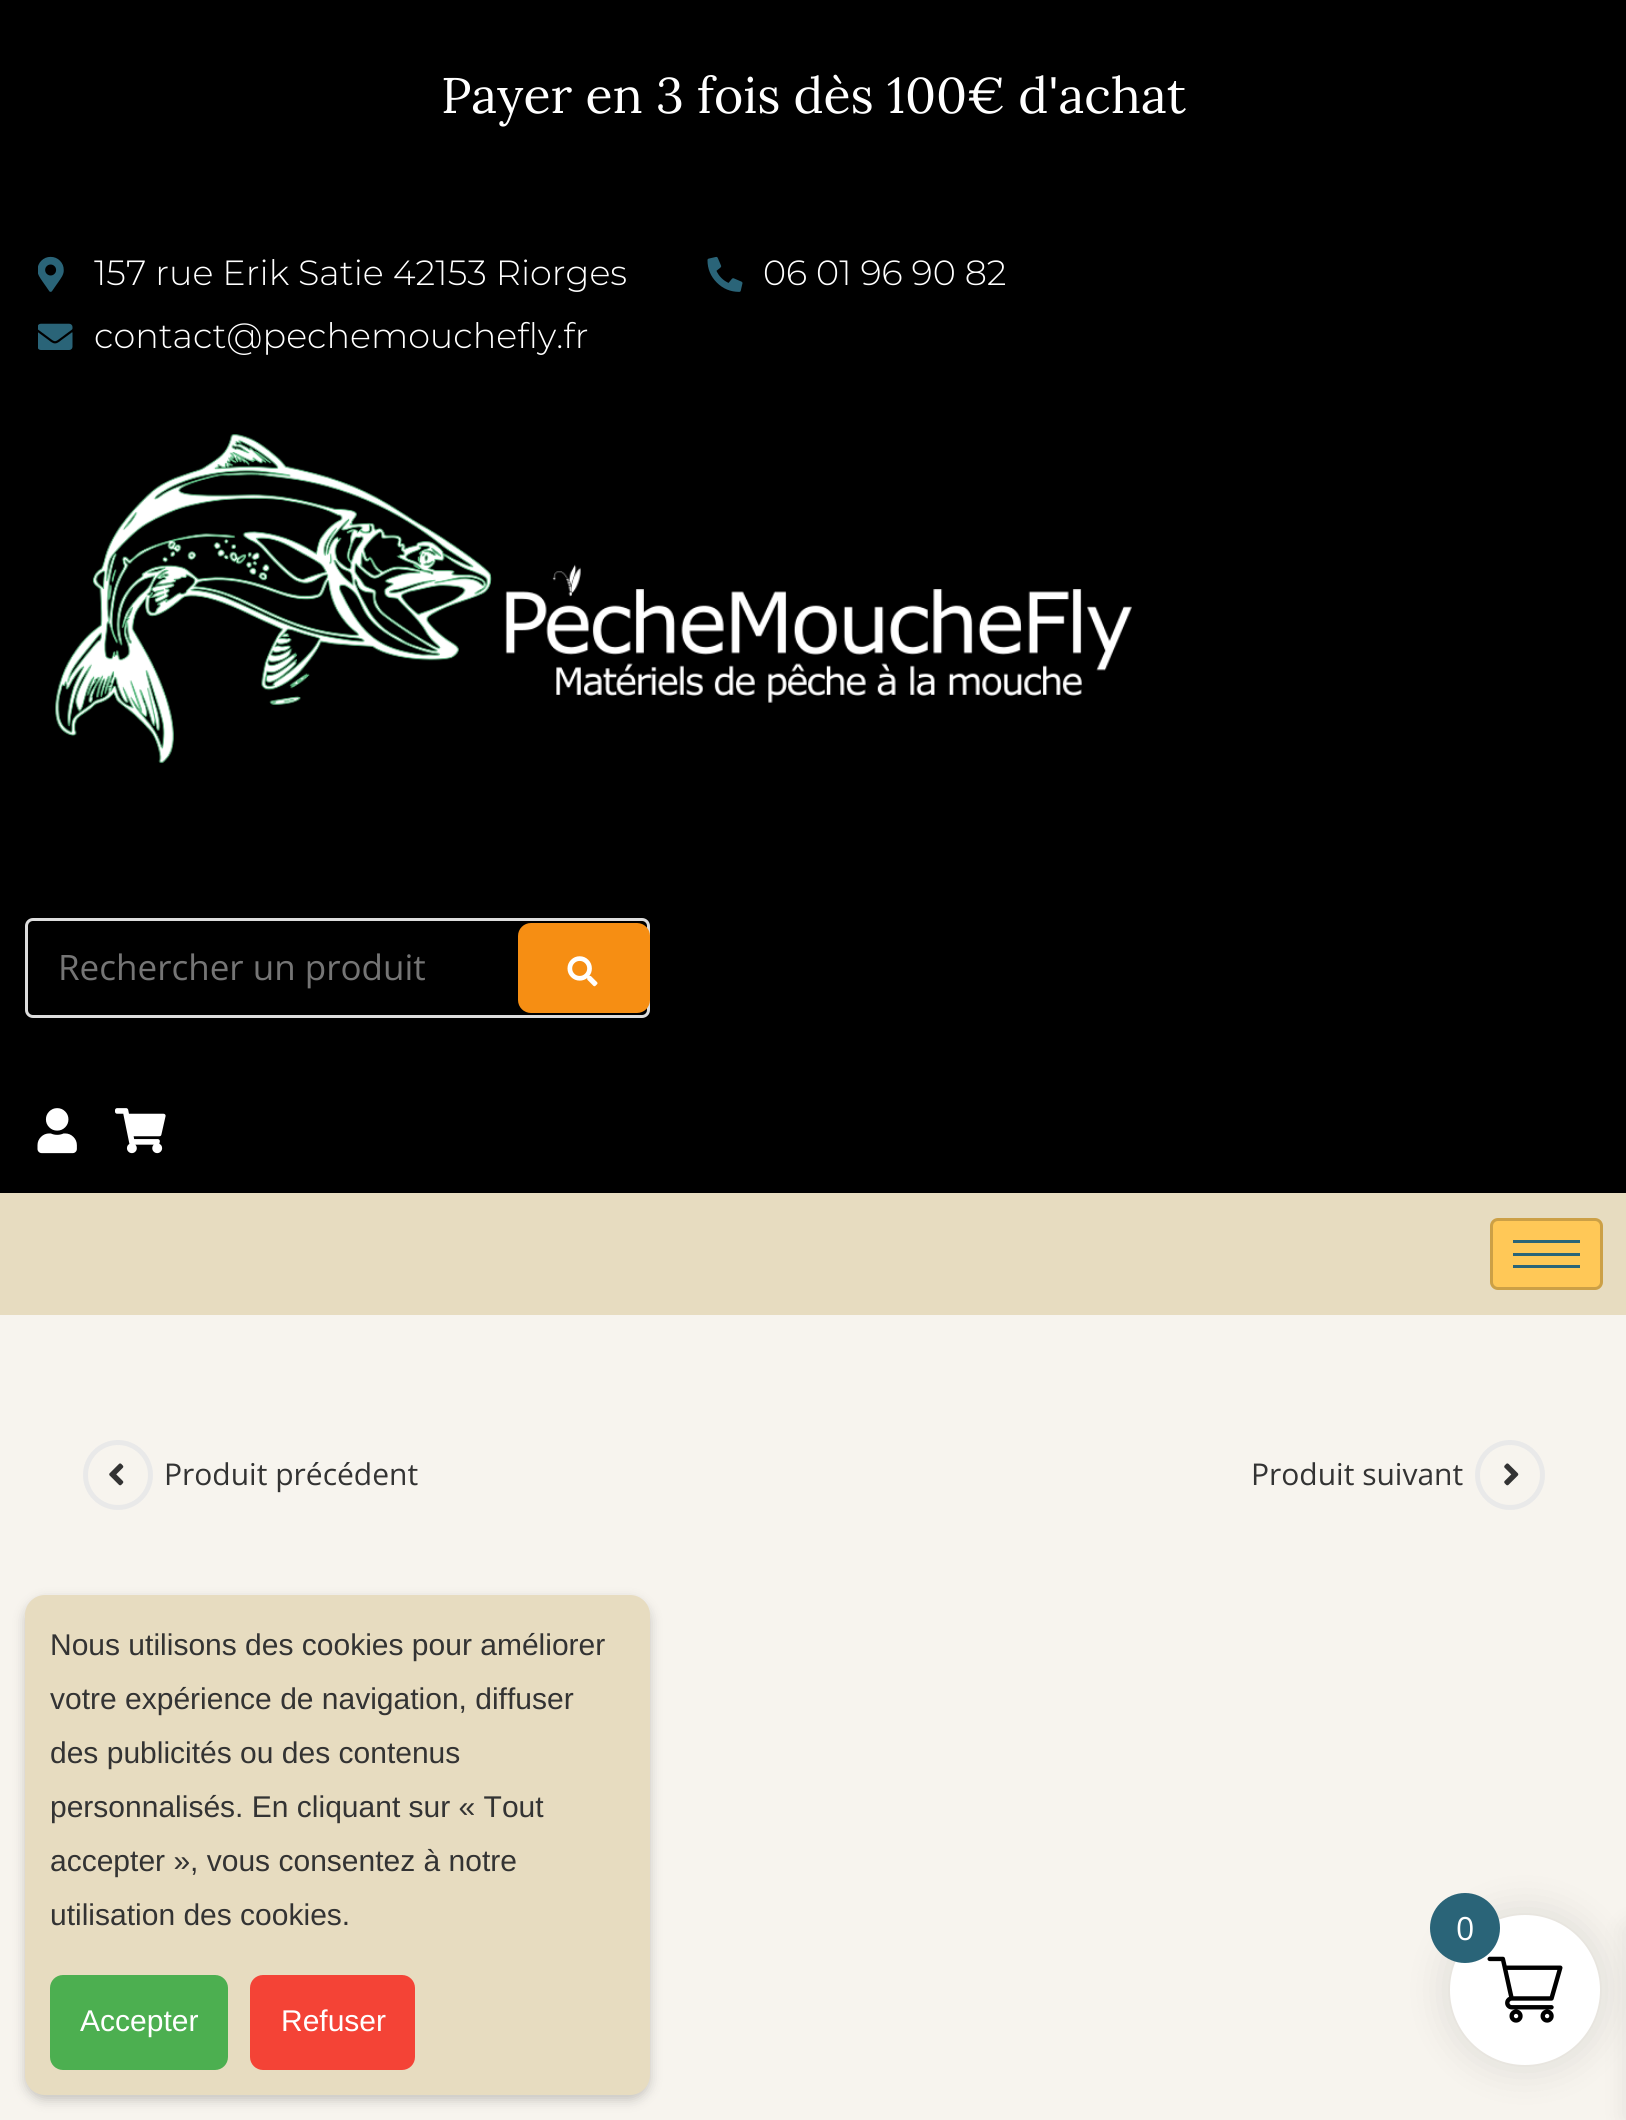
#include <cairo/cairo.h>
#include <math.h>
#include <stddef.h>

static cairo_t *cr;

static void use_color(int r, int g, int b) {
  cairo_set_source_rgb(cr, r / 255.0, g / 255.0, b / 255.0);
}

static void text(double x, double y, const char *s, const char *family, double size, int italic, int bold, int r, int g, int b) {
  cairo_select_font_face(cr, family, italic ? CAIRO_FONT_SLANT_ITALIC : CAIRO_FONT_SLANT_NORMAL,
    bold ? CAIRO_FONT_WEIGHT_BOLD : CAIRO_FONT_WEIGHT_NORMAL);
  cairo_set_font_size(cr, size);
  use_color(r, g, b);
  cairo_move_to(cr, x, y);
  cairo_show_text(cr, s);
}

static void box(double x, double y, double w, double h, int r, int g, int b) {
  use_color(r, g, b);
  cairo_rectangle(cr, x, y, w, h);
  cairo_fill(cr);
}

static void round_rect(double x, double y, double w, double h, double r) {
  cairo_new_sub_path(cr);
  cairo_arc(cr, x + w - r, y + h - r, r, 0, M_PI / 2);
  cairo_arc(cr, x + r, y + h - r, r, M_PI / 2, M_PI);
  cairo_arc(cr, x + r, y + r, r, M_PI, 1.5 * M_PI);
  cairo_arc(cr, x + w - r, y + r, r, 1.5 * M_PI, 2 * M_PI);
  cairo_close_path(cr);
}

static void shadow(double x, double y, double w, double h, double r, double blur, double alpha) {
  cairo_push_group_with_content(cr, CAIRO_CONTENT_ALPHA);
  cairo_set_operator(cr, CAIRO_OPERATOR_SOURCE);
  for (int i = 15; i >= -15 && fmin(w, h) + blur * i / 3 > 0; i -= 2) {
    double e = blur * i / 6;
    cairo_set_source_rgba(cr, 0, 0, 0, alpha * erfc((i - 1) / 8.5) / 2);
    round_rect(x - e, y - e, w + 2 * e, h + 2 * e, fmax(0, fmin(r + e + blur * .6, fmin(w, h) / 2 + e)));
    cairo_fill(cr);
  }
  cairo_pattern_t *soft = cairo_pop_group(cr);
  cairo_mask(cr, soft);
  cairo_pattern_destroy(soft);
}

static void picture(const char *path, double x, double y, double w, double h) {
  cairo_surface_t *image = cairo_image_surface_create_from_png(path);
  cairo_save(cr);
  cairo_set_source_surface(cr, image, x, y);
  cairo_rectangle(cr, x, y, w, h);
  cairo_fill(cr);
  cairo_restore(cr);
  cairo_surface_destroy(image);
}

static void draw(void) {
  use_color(247, 244, 238);
  cairo_paint(cr);
  box(0, 0, 1626, 1193, 0, 0, 0);
  picture("img_01.png", 38, 256, 26, 36);
  picture("img_02.png", 707, 256, 36, 36);
  picture("img_03.png", 38, 323, 35, 27);
  picture("img_04.png", 55, 434, 1077, 330);
  round_rect(26.5, 919.5, 622, 97, 6.5);
  use_color(221, 221, 221);
  cairo_set_line_width(cr, 3);
  cairo_stroke(cr);
  use_color(246, 142, 19);
  round_rect(518, 923, 132, 90, 13);
  cairo_fill(cr);
  picture("img_05.png", 567, 956, 31, 31);
  picture("img_06.png", 37, 1108, 40, 46);
  picture("img_07.png", 115, 1108, 51, 46);
  box(0, 1193, 1626, 122, 231, 220, 192);
  use_color(255, 200, 87);
  round_rect(1490, 1218, 113, 72, 8);
  cairo_fill(cr);
  round_rect(1491.5, 1219.5, 110, 69, 6.5);
  cairo_set_source_rgba(cr, 0, 0, 0, 0.2);
  cairo_stroke(cr);
  box(1513, 1240, 67, 3, 42, 100, 120);
  box(1513, 1253, 67, 3, 42, 100, 120);
  box(1513, 1265, 67, 3, 42, 100, 120);
  cairo_arc(cr, 118, 1475, 32.5, 0, 2 * M_PI);
  use_color(233, 233, 233);
  cairo_set_line_width(cr, 5);
  cairo_stroke(cr);
  picture("img_08.png", 109, 1463, 15, 23);
  cairo_arc(cr, 1510, 1475, 32.5, 0, 2 * M_PI);
  cairo_stroke(cr);
  picture("img_09.png", 1504, 1463, 15, 23);
  use_color(0, 0, 0);
  shadow(25, 1600, 625, 500, 20, 6, 0.2);
  use_color(231, 220, 192);
  round_rect(25, 1595, 625, 500, 20);
  cairo_fill(cr);
  use_color(76, 175, 80);
  round_rect(50, 1975, 178, 95, 13);
  cairo_fill(cr);
  use_color(244, 67, 54);
  round_rect(250, 1975, 165, 95, 13);
  cairo_fill(cr);
  use_color(0, 0, 0);
  shadow(1445, 1910, 160, 160, 80, 19, 0.1);
  shadow(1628, 1928, 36, 190, 0, 12.5, 0.1);
  use_color(255, 255, 255);
  cairo_arc(cr, 1525, 1990, 75, 0, 2 * M_PI);
  cairo_fill(cr);
  picture("img_10.png", 1487, 1956, 76, 67);
  use_color(42, 100, 120);
  cairo_arc(cr, 1465, 1928, 35, 0, 2 * M_PI);
  cairo_fill(cr);
  text(441, 113, "Payer en 3 fois dès 100€ d'achat", "Lora", 50, 0, 0, 255, 255, 255);
  text(94, 285, "157 rue Erik Satie 42153 Riorges", "Montserrat Light", 35, 0, 0, 255, 255, 255);
  text(763, 285, "06 01 96 90 82", "Montserrat Light", 35, 0, 0, 255, 255, 255);
  text(94, 348, "contact@pechemouchefly.fr", "Montserrat Light", 35, 0, 0, 255, 255, 255);
  text(58, 980, "Rechercher un produit", "Open Sans", 35, 0, 0, 117, 117, 117);
  text(164, 1485, "Produit précédent", "Open Sans", 30, 0, 0, 51, 51, 51);
  text(1251, 1485, "Produit suivant", "Open Sans", 30, 0, 0, 51, 51, 51);
  text(50, 1655, "Nous utilisons des cookies pour améliorer", "Liberation Sans", 30, 0, 0, 51, 51, 51);
  text(50, 1709, "votre expérience de navigation, diffuser", "Liberation Sans", 30, 0, 0, 51, 51, 51);
  text(50, 1763, "des publicités ou des contenus", "Liberation Sans", 30, 0, 0, 51, 51, 51);
  text(50, 1817, "personnalisés. En cliquant sur « Tout", "Liberation Sans", 30, 0, 0, 51, 51, 51);
  text(50, 1871, "accepter », vous consentez à notre", "Liberation Sans", 30, 0, 0, 51, 51, 51);
  text(50, 1925, "utilisation des cookies.", "Liberation Sans", 30, 0, 0, 51, 51, 51);
  text(80, 2031, "Accepter", "Liberation Sans", 30, 0, 0, 255, 255, 255);
  text(281, 2031, "Refuser", "Liberation Sans", 30, 0, 0, 255, 255, 255);
  text(1456, 1940, "0", "Open Sans", 32, 0, 0, 255, 255, 255);
}

int main(void) {
  cairo_surface_t *surface = cairo_image_surface_create(CAIRO_FORMAT_RGB24, 1626, 2120);
  cr = cairo_create(surface);
  cairo_font_options_t *options = cairo_font_options_create();
  cairo_font_options_set_hint_metrics(options, CAIRO_HINT_METRICS_OFF);
  cairo_font_options_set_hint_style(options, CAIRO_HINT_STYLE_NONE);
  cairo_set_font_options(cr, options);
  cairo_set_miter_limit(cr, 4);
  draw();
  cairo_surface_write_to_png(surface, "out.png");
  cairo_font_options_destroy(options);
  cairo_destroy(cr);
  cairo_surface_destroy(surface);
  return 0;
}
